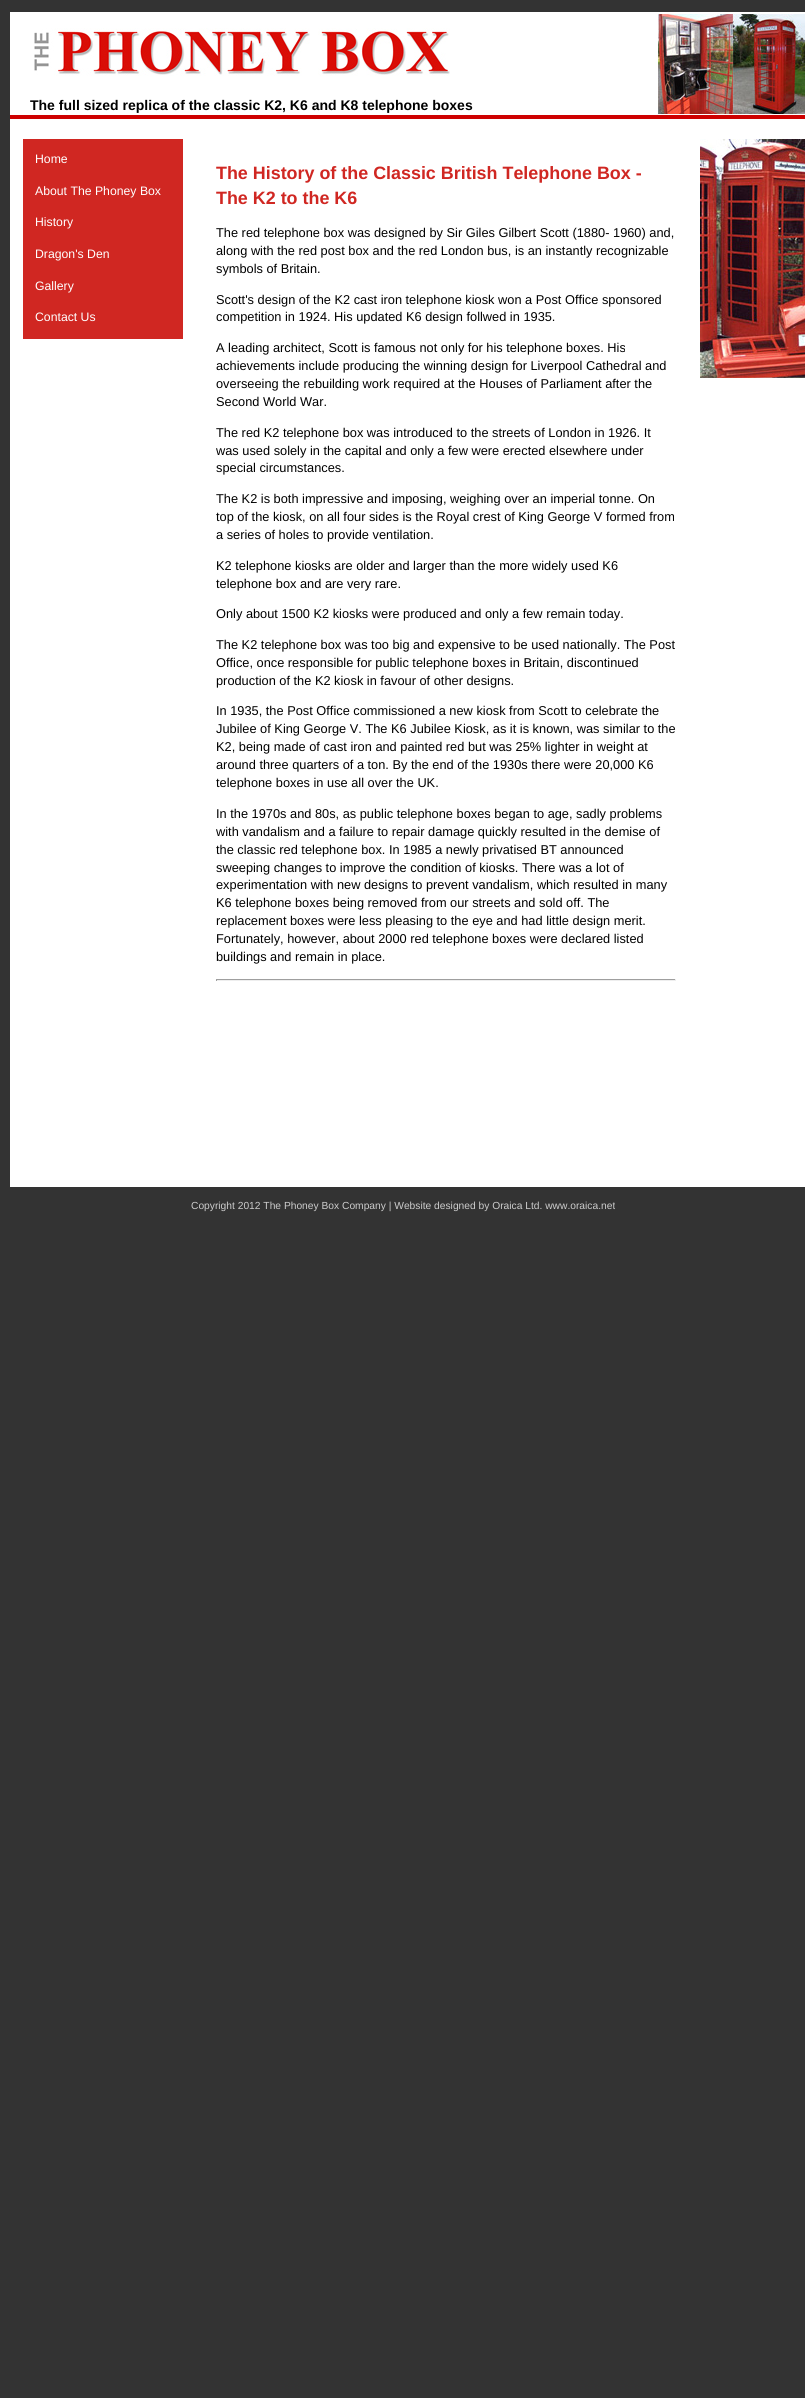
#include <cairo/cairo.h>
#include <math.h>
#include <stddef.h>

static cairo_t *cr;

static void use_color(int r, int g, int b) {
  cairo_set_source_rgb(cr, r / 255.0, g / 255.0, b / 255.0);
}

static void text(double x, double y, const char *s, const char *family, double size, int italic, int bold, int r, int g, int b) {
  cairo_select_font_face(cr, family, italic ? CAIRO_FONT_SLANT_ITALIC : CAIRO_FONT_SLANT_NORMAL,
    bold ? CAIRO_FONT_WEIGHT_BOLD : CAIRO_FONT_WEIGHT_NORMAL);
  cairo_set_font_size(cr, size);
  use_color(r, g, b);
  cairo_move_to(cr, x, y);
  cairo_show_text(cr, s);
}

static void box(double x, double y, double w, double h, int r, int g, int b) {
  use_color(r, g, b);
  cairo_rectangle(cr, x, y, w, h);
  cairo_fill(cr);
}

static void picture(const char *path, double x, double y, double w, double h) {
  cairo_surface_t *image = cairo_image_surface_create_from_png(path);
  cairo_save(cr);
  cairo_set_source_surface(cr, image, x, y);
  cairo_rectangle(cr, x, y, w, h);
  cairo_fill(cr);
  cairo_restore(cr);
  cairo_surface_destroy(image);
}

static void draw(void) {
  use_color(51, 51, 51);
  cairo_paint(cr);
  box(10, 12, 795, 1175, 255, 255, 255);
  picture("img_01.png", 658, 14, 147, 100);
  box(10, 115, 795, 4, 206, 0, 0);
  picture("img_02.png", 34, 28, 416, 48);
  box(23, 139, 160, 200, 208, 39, 34);
  box(216, 979, 460, 1, 159, 159, 159);
  box(675, 979, 1, 2, 238, 238, 238);
  box(216, 980, 460, 1, 238, 238, 238);
  box(216, 979, 1, 2, 159, 159, 159);
  picture("img_03.png", 700, 139, 105, 239);
  text(30, 110, "The full sized replica of the classic K2, K6 and K8 telephone boxes", "Liberation Sans", 14, 0, 1, 0, 0, 0);
  text(35, 163, "Home", "Liberation Sans", 12.25, 0, 0, 255, 255, 255);
  text(35, 195, "About The Phoney Box", "Liberation Sans", 12.25, 0, 0, 255, 255, 255);
  text(35, 226, "History", "Liberation Sans", 12.25, 0, 0, 255, 255, 255);
  text(35, 258, "Dragon's Den", "Liberation Sans", 12.25, 0, 0, 255, 255, 255);
  text(35, 290, "Gallery", "Liberation Sans", 12.25, 0, 0, 255, 255, 255);
  text(35, 321, "Contact Us", "Liberation Sans", 12.25, 0, 0, 255, 255, 255);
  text(216, 179, "The History of the Classic British Telephone Box -", "Liberation Sans", 17.9, 0, 1, 208, 39, 34);
  text(216, 204, "The K2 to the K6", "Liberation Sans", 17.9, 0, 1, 208, 39, 34);
  text(216, 237, "The red telephone box was designed by Sir Giles Gilbert Scott (1880- 1960) and,", "Liberation Sans", 12.8, 0, 0, 0, 0, 0);
  text(216, 255, "along with the red post box and the red London bus, is an instantly recognizable", "Liberation Sans", 12.8, 0, 0, 0, 0, 0);
  text(216, 273, "symbols of Britain.", "Liberation Sans", 12.8, 0, 0, 0, 0, 0);
  text(216, 304, "Scott's design of the K2 cast iron telephone kiosk won a Post Office sponsored", "Liberation Sans", 12.8, 0, 0, 0, 0, 0);
  text(216, 321, "competition in 1924. His updated K6 design follwed in 1935.", "Liberation Sans", 12.8, 0, 0, 0, 0, 0);
  text(216, 352, "A leading architect, Scott is famous not only for his telephone boxes. His", "Liberation Sans", 12.8, 0, 0, 0, 0, 0);
  text(216, 370, "achievements include producing the winning design for Liverpool Cathedral and", "Liberation Sans", 12.8, 0, 0, 0, 0, 0);
  text(216, 388, "overseeing the rebuilding work required at the Houses of Parliament after the", "Liberation Sans", 12.8, 0, 0, 0, 0, 0);
  text(216, 406, "Second World War.", "Liberation Sans", 12.8, 0, 0, 0, 0, 0);
  text(216, 437, "The red K2 telephone box was introduced to the streets of London in 1926. It", "Liberation Sans", 12.8, 0, 0, 0, 0, 0);
  text(216, 455, "was used solely in the capital and only a few were erected elsewhere under", "Liberation Sans", 12.8, 0, 0, 0, 0, 0);
  text(216, 472, "special circumstances.", "Liberation Sans", 12.8, 0, 0, 0, 0, 0);
  text(216, 503, "The K2 is both impressive and imposing, weighing over an imperial tonne. On", "Liberation Sans", 12.8, 0, 0, 0, 0, 0);
  text(216, 521, "top of the kiosk, on all four sides is the Royal crest of King George V formed from", "Liberation Sans", 12.8, 0, 0, 0, 0, 0);
  text(216, 539, "a series of holes to provide ventilation.", "Liberation Sans", 12.8, 0, 0, 0, 0, 0);
  text(216, 570, "K2 telephone kiosks are older and larger than the more widely used K6", "Liberation Sans", 12.8, 0, 0, 0, 0, 0);
  text(216, 588, "telephone box and are very rare.", "Liberation Sans", 12.8, 0, 0, 0, 0, 0);
  text(216, 618, "Only about 1500 K2 kiosks were produced and only a few remain today.", "Liberation Sans", 12.8, 0, 0, 0, 0, 0);
  text(216, 649, "The K2 telephone box was too big and expensive to be used nationally. The Post", "Liberation Sans", 12.8, 0, 0, 0, 0, 0);
  text(216, 667, "Office, once responsible for public telephone boxes in Britain, discontinued", "Liberation Sans", 12.8, 0, 0, 0, 0, 0);
  text(216, 685, "production of the K2 kiosk in favour of other designs.", "Liberation Sans", 12.8, 0, 0, 0, 0, 0);
  text(216, 715, "In 1935, the Post Office commissioned a new kiosk from Scott to celebrate the", "Liberation Sans", 12.8, 0, 0, 0, 0, 0);
  text(216, 733, "Jubilee of King George V. The K6 Jubilee Kiosk, as it is known, was similar to the", "Liberation Sans", 12.8, 0, 0, 0, 0, 0);
  text(216, 751, "K2, being made of cast iron and painted red but was 25% lighter in weight at", "Liberation Sans", 12.8, 0, 0, 0, 0, 0);
  text(216, 769, "around three quarters of a ton. By the end of the 1930s there were 20,000 K6", "Liberation Sans", 12.8, 0, 0, 0, 0, 0);
  text(216, 787, "telephone boxes in use all over the UK.", "Liberation Sans", 12.8, 0, 0, 0, 0, 0);
  text(216, 818, "In the 1970s and 80s, as public telephone boxes began to age, sadly problems", "Liberation Sans", 12.8, 0, 0, 0, 0, 0);
  text(216, 836, "with vandalism and a failure to repair damage quickly resulted in the demise of", "Liberation Sans", 12.8, 0, 0, 0, 0, 0);
  text(216, 854, "the classic red telephone box. In 1985 a newly privatised BT announced", "Liberation Sans", 12.8, 0, 0, 0, 0, 0);
  text(216, 872, "sweeping changes to improve the condition of kiosks. There was a lot of", "Liberation Sans", 12.8, 0, 0, 0, 0, 0);
  text(216, 889, "experimentation with new designs to prevent vandalism, which resulted in many", "Liberation Sans", 12.8, 0, 0, 0, 0, 0);
  text(216, 907, "K6 telephone boxes being removed from our streets and sold off. The", "Liberation Sans", 12.8, 0, 0, 0, 0, 0);
  text(216, 925, "replacement boxes were less pleasing to the eye and had little design merit.", "Liberation Sans", 12.8, 0, 0, 0, 0, 0);
  text(216, 943, "Fortunately, however, about 2000 red telephone boxes were declared listed", "Liberation Sans", 12.8, 0, 0, 0, 0, 0);
  text(216, 961, "buildings and remain in place.", "Liberation Sans", 12.8, 0, 0, 0, 0, 0);
  text(191, 1209, "Copyright 2012 The Phoney Box Company | Website designed by Oraica Ltd. www.oraica.net", "Liberation Sans", 10.25, 0, 0, 204, 204, 204);
}

int main(void) {
  cairo_surface_t *surface = cairo_image_surface_create(CAIRO_FORMAT_RGB24, 805, 2398);
  cr = cairo_create(surface);
  cairo_font_options_t *options = cairo_font_options_create();
  cairo_font_options_set_hint_metrics(options, CAIRO_HINT_METRICS_OFF);
  cairo_font_options_set_hint_style(options, CAIRO_HINT_STYLE_NONE);
  cairo_set_font_options(cr, options);
  cairo_set_miter_limit(cr, 4);
  draw();
  cairo_surface_write_to_png(surface, "out.png");
  cairo_font_options_destroy(options);
  cairo_destroy(cr);
  cairo_surface_destroy(surface);
  return 0;
}
